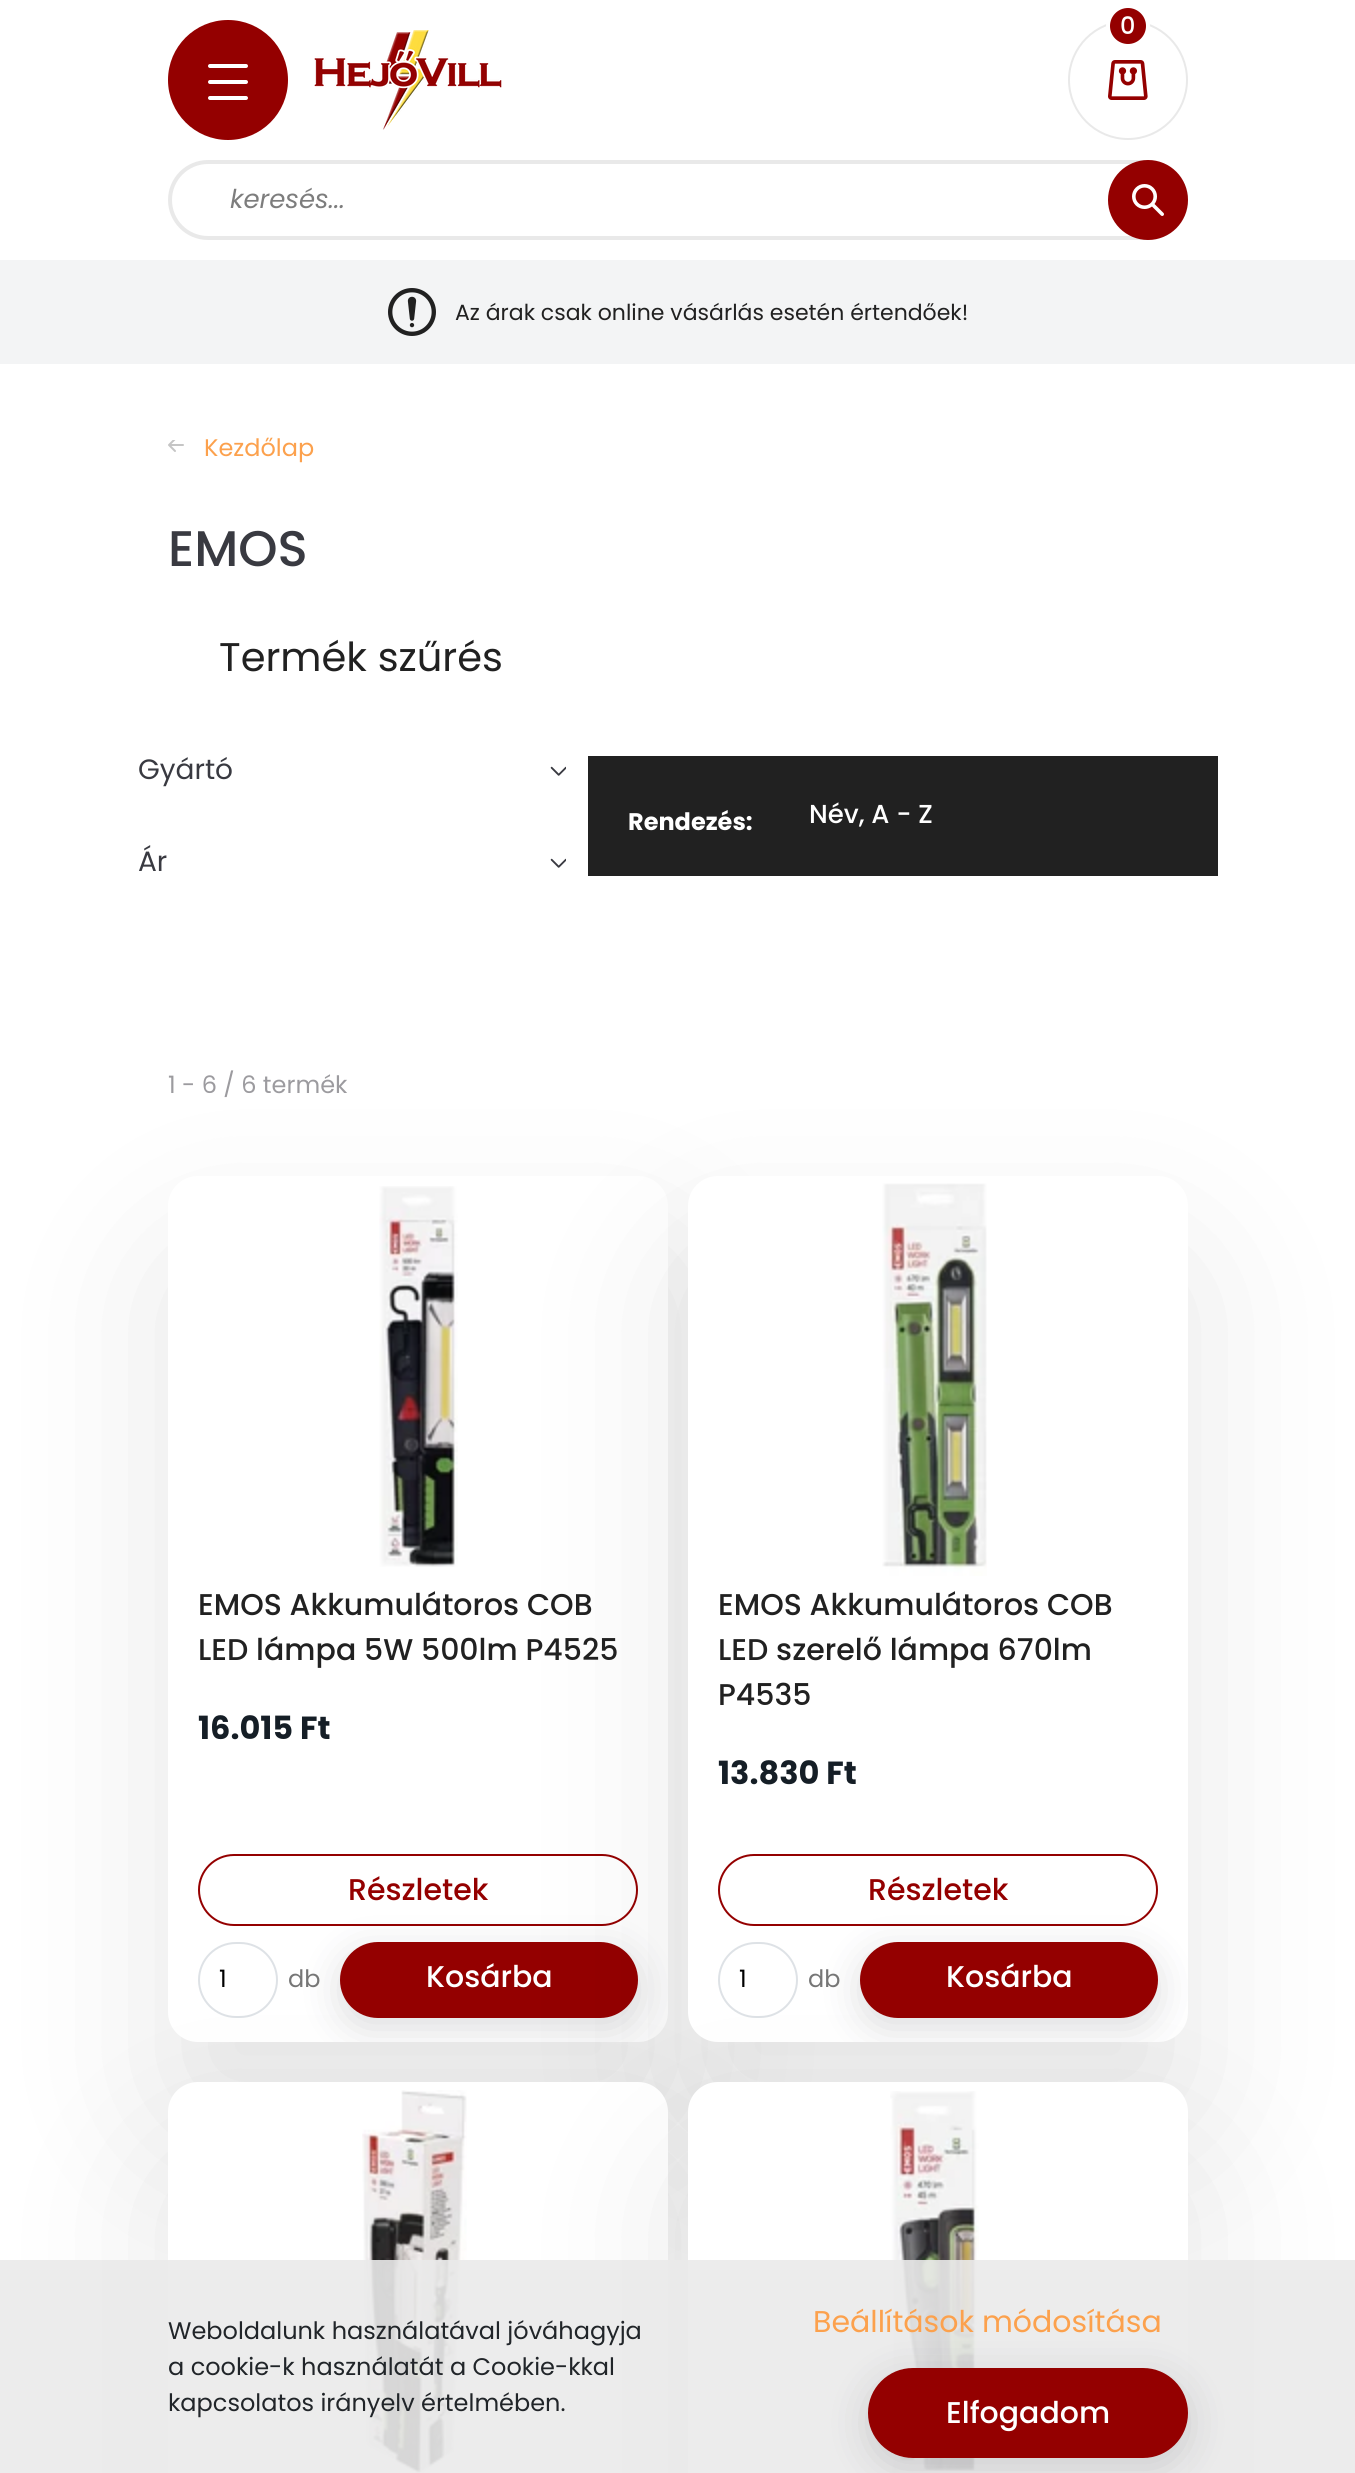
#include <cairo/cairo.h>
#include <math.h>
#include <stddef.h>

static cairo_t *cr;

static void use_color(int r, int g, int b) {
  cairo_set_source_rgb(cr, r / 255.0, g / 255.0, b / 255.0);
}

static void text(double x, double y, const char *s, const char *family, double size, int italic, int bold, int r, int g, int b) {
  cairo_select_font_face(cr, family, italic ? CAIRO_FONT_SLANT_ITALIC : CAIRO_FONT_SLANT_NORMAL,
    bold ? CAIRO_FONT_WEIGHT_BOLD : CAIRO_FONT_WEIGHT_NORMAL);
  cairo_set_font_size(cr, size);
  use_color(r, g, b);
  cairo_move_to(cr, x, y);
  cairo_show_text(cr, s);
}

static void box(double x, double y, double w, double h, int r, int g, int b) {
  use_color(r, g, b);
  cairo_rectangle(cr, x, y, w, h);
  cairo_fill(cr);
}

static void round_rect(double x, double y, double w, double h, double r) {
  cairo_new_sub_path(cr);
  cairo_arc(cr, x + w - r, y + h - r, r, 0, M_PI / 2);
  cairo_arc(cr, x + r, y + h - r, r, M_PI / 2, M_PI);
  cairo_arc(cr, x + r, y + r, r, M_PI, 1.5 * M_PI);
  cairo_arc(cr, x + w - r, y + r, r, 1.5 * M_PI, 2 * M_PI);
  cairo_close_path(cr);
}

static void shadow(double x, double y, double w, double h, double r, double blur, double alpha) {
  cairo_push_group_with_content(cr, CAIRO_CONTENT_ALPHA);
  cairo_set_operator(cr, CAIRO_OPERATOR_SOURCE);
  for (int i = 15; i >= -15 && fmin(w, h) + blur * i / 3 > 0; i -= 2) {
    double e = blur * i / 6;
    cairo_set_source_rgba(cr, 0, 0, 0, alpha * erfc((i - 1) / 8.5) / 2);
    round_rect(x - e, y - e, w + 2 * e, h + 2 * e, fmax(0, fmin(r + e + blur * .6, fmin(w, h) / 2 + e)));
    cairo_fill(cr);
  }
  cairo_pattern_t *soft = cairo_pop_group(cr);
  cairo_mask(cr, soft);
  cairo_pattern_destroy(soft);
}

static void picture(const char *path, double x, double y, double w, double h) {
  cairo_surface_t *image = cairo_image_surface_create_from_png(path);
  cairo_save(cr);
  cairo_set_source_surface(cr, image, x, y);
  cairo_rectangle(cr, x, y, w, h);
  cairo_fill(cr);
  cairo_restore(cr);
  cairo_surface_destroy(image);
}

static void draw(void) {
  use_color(255, 255, 255);
  cairo_paint(cr);
  use_color(148, 0, 0);
  cairo_arc(cr, 228, 80, 59, 0, 2 * M_PI);
  cairo_fill_preserve(cr);
  cairo_stroke(cr);
  use_color(255, 255, 255);
  round_rect(208, 64, 40, 4, 2);
  cairo_fill(cr);
  round_rect(208, 80, 40, 4, 2);
  cairo_fill(cr);
  round_rect(208, 96, 40, 4, 2);
  cairo_fill(cr);
  picture("img_01.png", 314, 30, 188, 100);
  cairo_arc(cr, 1128, 80, 59, 0, 2 * M_PI);
  use_color(233, 233, 233);
  cairo_stroke(cr);
  use_color(148, 0, 0);
  cairo_arc(cr, 1128, 26, 20, 0, 2 * M_PI);
  cairo_fill_preserve(cr);
  use_color(255, 255, 255);
  cairo_set_line_width(cr, 4);
  cairo_stroke(cr);
  picture("img_02.png", 1108, 60, 40, 40);
  round_rect(170, 162, 1016, 76, 38);
  use_color(233, 233, 233);
  cairo_stroke(cr);
  use_color(148, 0, 0);
  cairo_arc(cr, 1148, 200, 39, 0, 2 * M_PI);
  cairo_fill_preserve(cr);
  cairo_set_line_width(cr, 2);
  cairo_stroke(cr);
  picture("img_03.png", 1132, 184, 32, 32);
  box(0, 260, 1355, 104, 243, 244, 245);
  picture("img_04.png", 388, 288, 48, 48);
  picture("img_05.png", 168, 440, 16, 12);
  picture("img_06.png", 550, 766, 16, 10);
  picture("img_06.png", 550, 858, 16, 10);
  box(588, 756, 630, 120, 33, 33, 33);
  use_color(0, 0, 0);
  shadow(168, 1256, 500, 866, 30, 80, 0.1);
  use_color(255, 255, 255);
  round_rect(168, 1176, 500, 866, 30);
  cairo_fill(cr);
  picture("img_07.png", 379, 1186, 79, 381);
  round_rect(199, 1855, 438, 70, 35);
  use_color(148, 0, 0);
  cairo_stroke(cr);
  round_rect(199, 1943, 78, 74, 37);
  use_color(222, 226, 230);
  cairo_stroke(cr);
  cairo_save(cr);
  round_rect(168, 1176, 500, 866, 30);
  cairo_clip(cr);
  use_color(32, 32, 44);
  shadow(340, 1952, 298, 76, 38, 20, 0.15);
  cairo_restore(cr);
  use_color(148, 0, 0);
  round_rect(341, 1943, 296, 74, 37);
  cairo_fill_preserve(cr);
  cairo_stroke(cr);
  use_color(0, 0, 0);
  shadow(688, 1256, 500, 866, 30, 80, 0.1);
  use_color(255, 255, 255);
  round_rect(688, 1176, 500, 866, 30);
  cairo_fill(cr);
  picture("img_08.png", 882, 1183, 105, 393);
  round_rect(719, 1855, 438, 70, 35);
  use_color(148, 0, 0);
  cairo_stroke(cr);
  round_rect(719, 1943, 78, 74, 37);
  use_color(222, 226, 230);
  cairo_stroke(cr);
  cairo_save(cr);
  round_rect(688, 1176, 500, 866, 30);
  cairo_clip(cr);
  use_color(32, 32, 44);
  shadow(860, 1952, 298, 76, 38, 20, 0.15);
  cairo_restore(cr);
  use_color(148, 0, 0);
  round_rect(861, 1943, 296, 74, 37);
  cairo_fill_preserve(cr);
  cairo_stroke(cr);
  use_color(0, 0, 0);
  shadow(168, 2162, 500, 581, 30, 80, 0.1);
  use_color(255, 255, 255);
  round_rect(168, 2082, 500, 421, 30);
  cairo_fill(cr);
  picture("img_09.png", 362, 2090, 105, 383);
  use_color(0, 0, 0);
  shadow(688, 2162, 500, 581, 30, 80, 0.1);
  use_color(255, 255, 255);
  round_rect(688, 2082, 500, 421, 30);
  cairo_fill(cr);
  picture("img_10.png", 890, 2091, 89, 382);
  cairo_set_source_rgba(cr, 0.918, 0.918, 0.918, 0.9);
  cairo_rectangle(cr, 0, 2260, 1355, 213);
  cairo_fill(cr);
  use_color(32, 32, 44);
  shadow(868, 2378, 320, 90, 45, 20, 0.15);
  use_color(148, 0, 0);
  round_rect(869, 2369, 318, 88, 44);
  cairo_fill_preserve(cr);
  cairo_stroke(cr);
  text(1120, 34, "0", "Poppins Medium", 24, 0, 0, 255, 255, 255);
  text(230, 208, "keresés...", "Poppins", 26, 1, 0, 125, 125, 125);
  text(455, 320, "Az árak csak online vásárlás esetén értendőek!", "Poppins", 22, 0, 0, 33, 33, 33);
  text(204, 456, "Kezdőlap", "Poppins", 24, 0, 0, 252, 161, 77);
  text(168, 566, "EMOS", "Poppins Medium", 50, 0, 0, 57, 58, 65);
  text(219, 671, "Termék szűrés", "Poppins", 40, 0, 0, 33, 33, 33);
  text(138, 779, "Gyártó", "Poppins", 28, 0, 0, 57, 58, 65);
  text(138, 871, "Ár", "Poppins", 28, 0, 0, 57, 58, 65);
  text(628, 830, "Rendezés:", "Poppins", 24, 0, 1, 255, 255, 255);
  text(809, 823, "Név, A - Z", "Poppins Medium", 26, 0, 0, 255, 255, 255);
  text(168, 1093, "1 - 6 / 6 termék", "Poppins", 24, 0, 0, 156, 155, 159);
  text(198, 1615, "EMOS Akkumulátoros COB", "Poppins Medium", 30, 0, 0, 33, 33, 33);
  text(198, 1660, "LED lámpa 5W 500lm P4525", "Poppins Medium", 30, 0, 0, 33, 33, 33);
  text(198, 1739, "16.015 Ft", "Poppins", 32, 0, 1, 21, 30, 38);
  text(348, 1900, "Részletek", "Poppins Medium", 30, 0, 0, 148, 0, 0);
  text(219, 1987, "1", "Poppins", 24, 0, 0, 0, 0, 0);
  text(288, 1987, "db", "Poppins", 24, 0, 0, 118, 118, 118);
  text(426, 1987, "Kosárba", "Poppins Medium", 30, 0, 0, 255, 255, 255);
  text(718, 1615, "EMOS Akkumulátoros COB", "Poppins Medium", 30, 0, 0, 33, 33, 33);
  text(718, 1660, "LED szerelő lámpa 670lm", "Poppins Medium", 30, 0, 0, 33, 33, 33);
  text(718, 1705, "P4535", "Poppins Medium", 30, 0, 0, 33, 33, 33);
  text(718, 1784, "13.830 Ft", "Poppins", 32, 0, 1, 21, 30, 38);
  text(868, 1900, "Részletek", "Poppins Medium", 30, 0, 0, 148, 0, 0);
  text(739, 1987, "1", "Poppins", 24, 0, 0, 0, 0, 0);
  text(808, 1987, "db", "Poppins", 24, 0, 0, 118, 118, 118);
  text(946, 1987, "Kosárba", "Poppins Medium", 30, 0, 0, 255, 255, 255);
  text(168, 2339, "Weboldalunk használatával jóváhagyja", "Poppins", 24, 0, 0, 33, 37, 41);
  text(168, 2375, "a cookie-k használatát a Cookie-kkal", "Poppins", 24, 0, 0, 33, 37, 41);
  text(168, 2411, "kapcsolatos irányelv értelmében.", "Poppins", 24, 0, 0, 33, 37, 41);
  text(813, 2332, "Beállítások módosítása", "Poppins", 30, 0, 0, 252, 161, 77);
  text(946, 2423, "Elfogadom", "Poppins Medium", 30, 0, 0, 255, 255, 255);
}

int main(void) {
  cairo_surface_t *surface = cairo_image_surface_create(CAIRO_FORMAT_RGB24, 1355, 2473);
  cr = cairo_create(surface);
  cairo_font_options_t *options = cairo_font_options_create();
  cairo_font_options_set_hint_metrics(options, CAIRO_HINT_METRICS_OFF);
  cairo_font_options_set_hint_style(options, CAIRO_HINT_STYLE_NONE);
  cairo_set_font_options(cr, options);
  cairo_set_miter_limit(cr, 4);
  draw();
  cairo_surface_write_to_png(surface, "out.png");
  cairo_font_options_destroy(options);
  cairo_destroy(cr);
  cairo_surface_destroy(surface);
  return 0;
}
